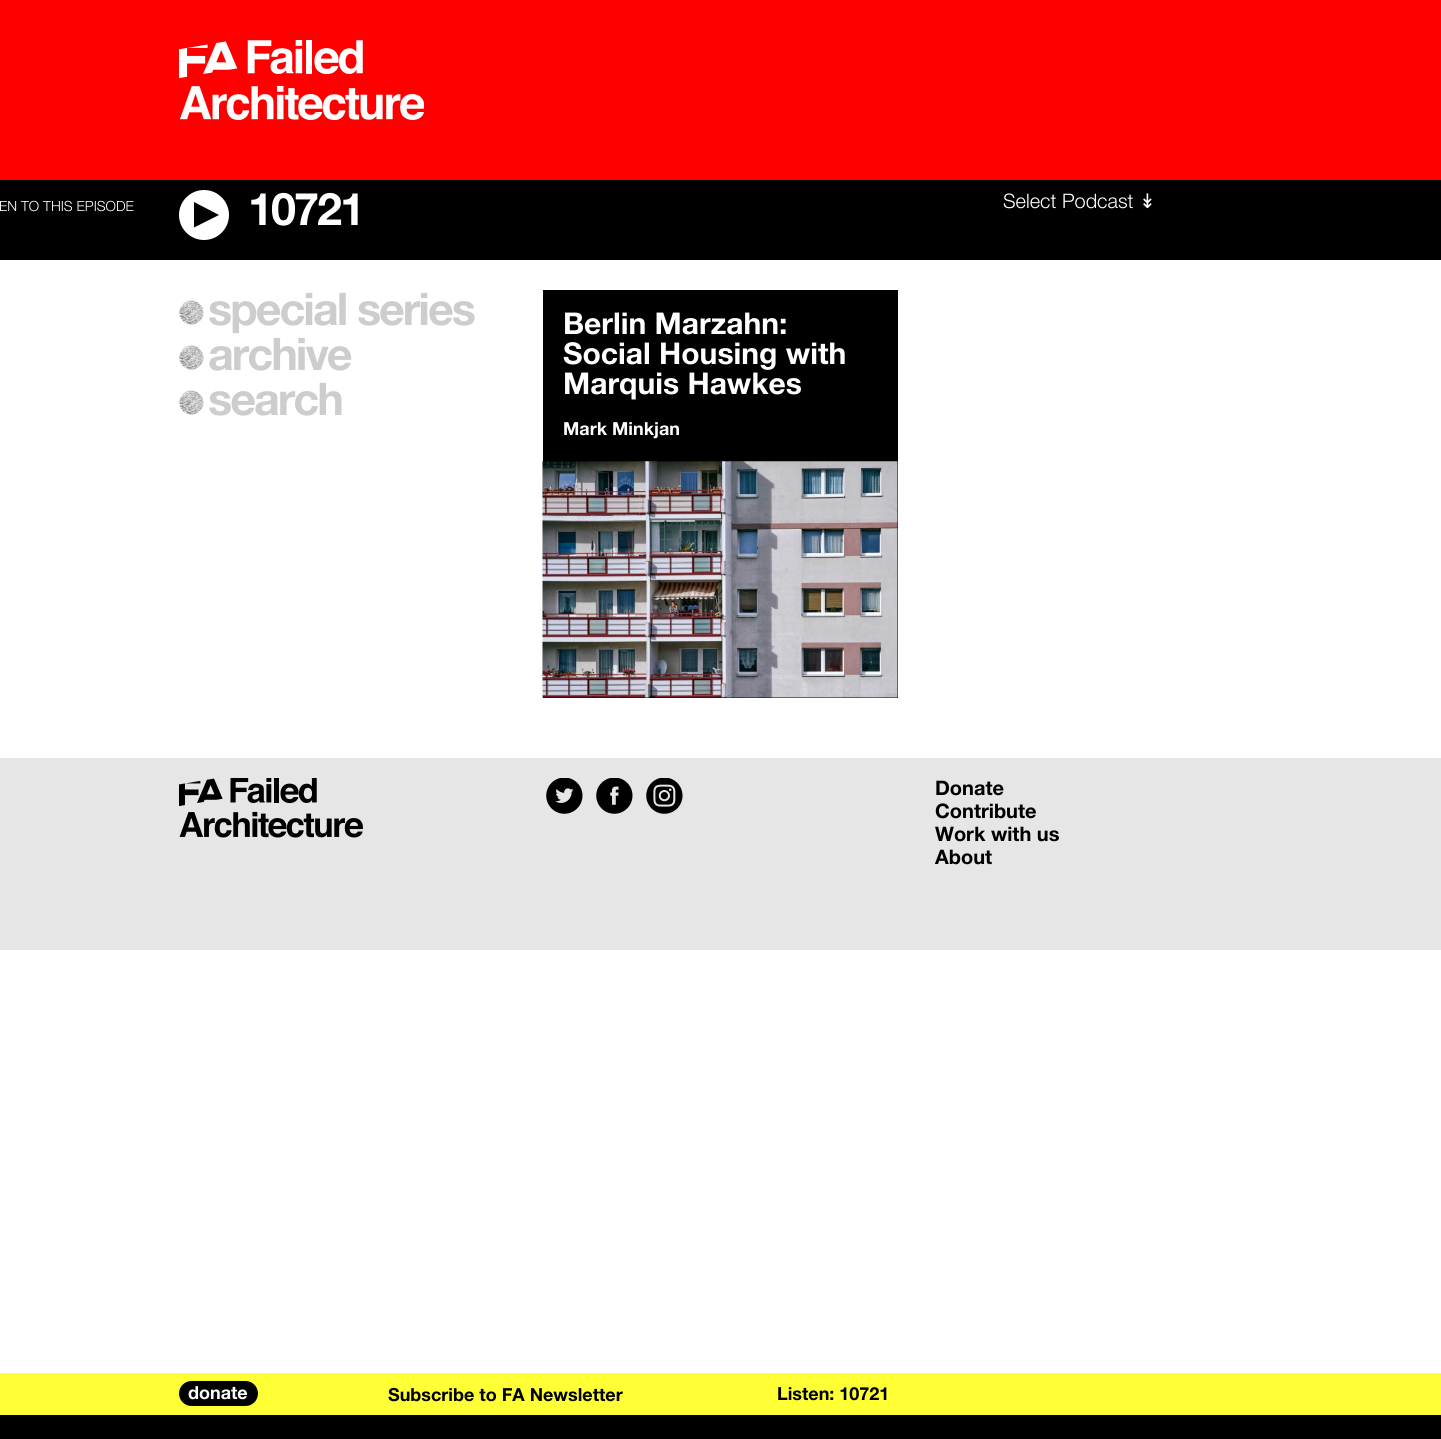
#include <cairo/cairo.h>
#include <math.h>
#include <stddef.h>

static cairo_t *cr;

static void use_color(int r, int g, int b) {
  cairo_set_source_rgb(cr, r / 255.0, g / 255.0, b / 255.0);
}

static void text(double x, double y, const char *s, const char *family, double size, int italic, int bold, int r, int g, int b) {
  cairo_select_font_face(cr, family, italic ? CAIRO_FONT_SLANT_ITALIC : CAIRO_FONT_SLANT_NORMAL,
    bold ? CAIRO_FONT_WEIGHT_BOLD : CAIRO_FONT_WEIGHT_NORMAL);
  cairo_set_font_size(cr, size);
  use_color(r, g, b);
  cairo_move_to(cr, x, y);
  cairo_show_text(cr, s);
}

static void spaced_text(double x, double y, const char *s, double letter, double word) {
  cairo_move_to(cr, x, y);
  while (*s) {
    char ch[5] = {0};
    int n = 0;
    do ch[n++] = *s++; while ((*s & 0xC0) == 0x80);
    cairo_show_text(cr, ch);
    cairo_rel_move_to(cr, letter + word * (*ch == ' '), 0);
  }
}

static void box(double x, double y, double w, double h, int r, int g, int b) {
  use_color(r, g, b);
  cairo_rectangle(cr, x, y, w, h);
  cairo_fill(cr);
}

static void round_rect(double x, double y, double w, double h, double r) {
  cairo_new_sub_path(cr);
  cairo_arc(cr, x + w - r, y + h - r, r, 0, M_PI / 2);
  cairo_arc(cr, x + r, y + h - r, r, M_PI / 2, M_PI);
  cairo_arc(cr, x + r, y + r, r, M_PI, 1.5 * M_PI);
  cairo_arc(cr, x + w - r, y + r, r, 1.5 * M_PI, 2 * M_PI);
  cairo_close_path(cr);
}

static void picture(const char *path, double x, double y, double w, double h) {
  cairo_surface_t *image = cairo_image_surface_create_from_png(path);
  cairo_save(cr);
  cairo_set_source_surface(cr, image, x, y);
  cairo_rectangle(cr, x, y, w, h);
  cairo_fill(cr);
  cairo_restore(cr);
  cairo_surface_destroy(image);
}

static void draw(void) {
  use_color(255, 255, 255);
  cairo_paint(cr);
  box(0, 0, 1441, 180, 255, 0, 0);
  picture("img_01.png", 179, 40, 245, 80);
  box(0, 180, 1441, 80, 0, 0, 0);
  use_color(255, 255, 255);
  cairo_arc(cr, 204, 215, 25, 0, 2 * M_PI);
  cairo_fill(cr);
  use_color(1, 1, 1);
  cairo_new_path(cr);
  cairo_move_to(cr, 219, 215);
  cairo_line_to(cr, 194, 227.5);
  cairo_line_to(cr, 194, 202);
  cairo_fill(cr);
  picture("img_02.png", 178, 300, 26, 25);
  picture("img_02.png", 178, 345, 26, 25);
  picture("img_02.png", 178, 390, 26, 25);
  box(543, 290, 355, 408, 0, 0, 0);
  picture("img_03.png", 542, 461, 356, 237);
  box(0, 758, 1441, 192, 230, 230, 230);
  picture("img_04.png", 179, 778, 184, 60);
  picture("img_05.png", 546, 778, 37, 36);
  picture("img_06.png", 596, 778, 37, 36);
  picture("img_07.png", 646, 778, 37, 36);
  box(0, 1373, 1441, 42, 255, 255, 54);
  box(0, 1415, 1441, 24, 0, 0, 0);
  round_rect(179, 1381, 79, 25, 12.5);
  cairo_fill(cr);
  text(-1, 211, "EN TO THIS EPISODE", "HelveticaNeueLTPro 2", 14, 0, 0, 255, 255, 255);
  cairo_select_font_face(cr, "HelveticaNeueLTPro", CAIRO_FONT_SLANT_NORMAL, CAIRO_FONT_WEIGHT_NORMAL);
  cairo_set_font_size(cr, 45);
  spaced_text(248, 225, "10721", -2, 0);
  text(1003, 208, "Select Podcast", "HelveticaNeueLTPro 2", 20, 0, 0, 255, 255, 255);
  text(1139, 208, "↡", "DejaVu Sans", 20, 0, 0, 255, 255, 255);
  cairo_select_font_face(cr, "HelveticaNeueLTPro", CAIRO_FONT_SLANT_NORMAL, CAIRO_FONT_WEIGHT_NORMAL);
  cairo_set_font_size(cr, 45);
  use_color(205, 205, 205);
  spaced_text(208, 325, "special series", -2, 0);
  spaced_text(208, 370, "archive", -2, 0);
  spaced_text(208, 415, "search", -2, 0);
  text(563, 334, "Berlin Marzahn:", "HelveticaNeueLTPro", 30, 0, 0, 255, 255, 255);
  text(563, 364, "Social Housing with", "HelveticaNeueLTPro", 30, 0, 0, 255, 255, 255);
  text(563, 394, "Marquis Hawkes", "HelveticaNeueLTPro", 30, 0, 0, 255, 255, 255);
  text(563, 435, "Mark Minkjan", "HelveticaNeueLTPro", 18, 0, 0, 255, 255, 255);
  text(935, 795, "Donate", "HelveticaNeueLTPro", 20, 0, 0, 0, 0, 0);
  text(935, 818, "Contribute", "HelveticaNeueLTPro", 20, 0, 0, 0, 0, 0);
  text(935, 841, "Work with us", "HelveticaNeueLTPro", 20, 0, 0, 0, 0, 0);
  text(935, 864, "About", "HelveticaNeueLTPro", 20, 0, 0, 0, 0, 0);
  text(188, 1399, "donate", "HelveticaNeueLTPro", 18, 0, 0, 255, 255, 255);
  text(388, 1401, "Subscribe to FA Newsletter", "HelveticaNeueLTPro", 18, 0, 0, 0, 0, 0);
  text(777, 1400, "Listen: 10721", "HelveticaNeueLTPro", 18, 0, 0, 0, 0, 0);
}

int main(void) {
  cairo_surface_t *surface = cairo_image_surface_create(CAIRO_FORMAT_RGB24, 1441, 1439);
  cr = cairo_create(surface);
  cairo_font_options_t *options = cairo_font_options_create();
  cairo_font_options_set_hint_metrics(options, CAIRO_HINT_METRICS_OFF);
  cairo_font_options_set_hint_style(options, CAIRO_HINT_STYLE_NONE);
  cairo_set_font_options(cr, options);
  cairo_set_miter_limit(cr, 4);
  draw();
  cairo_surface_write_to_png(surface, "out.png");
  cairo_font_options_destroy(options);
  cairo_destroy(cr);
  cairo_surface_destroy(surface);
  return 0;
}
